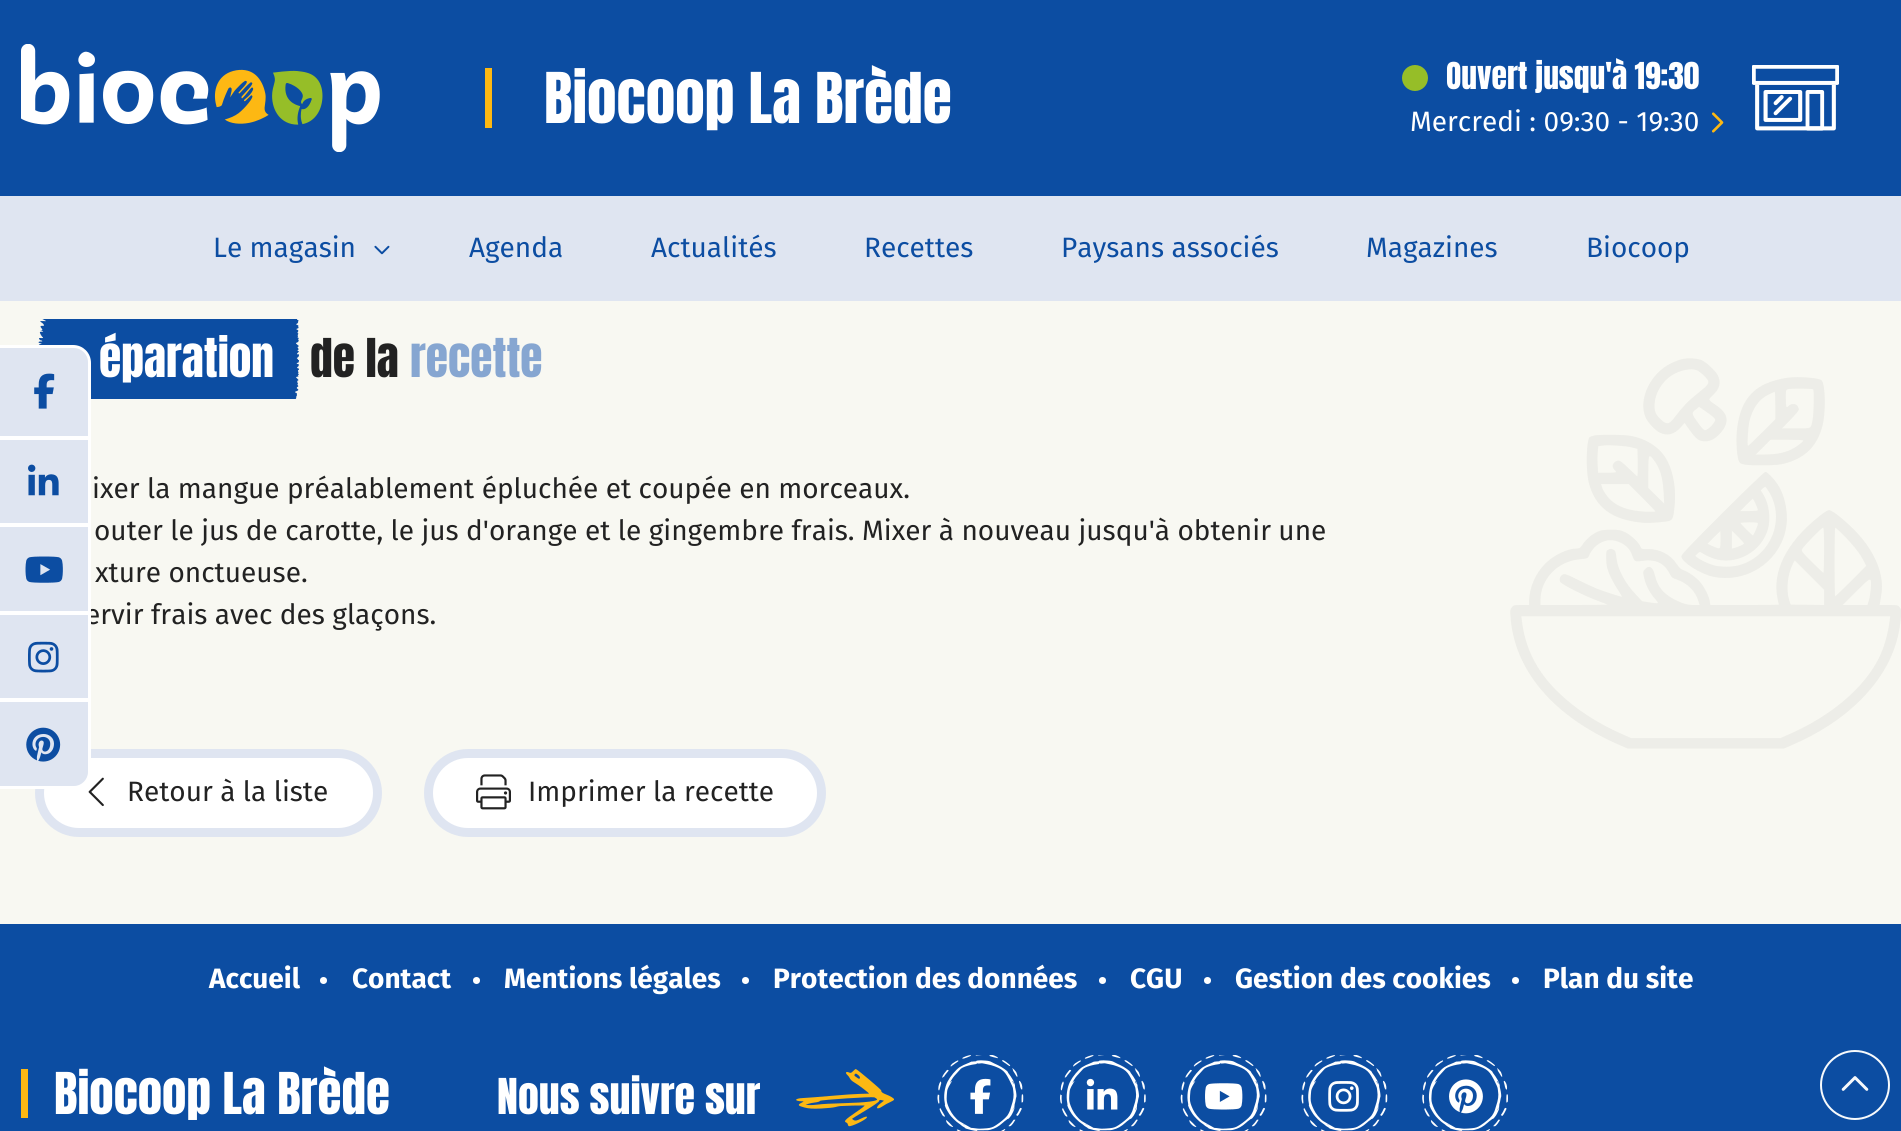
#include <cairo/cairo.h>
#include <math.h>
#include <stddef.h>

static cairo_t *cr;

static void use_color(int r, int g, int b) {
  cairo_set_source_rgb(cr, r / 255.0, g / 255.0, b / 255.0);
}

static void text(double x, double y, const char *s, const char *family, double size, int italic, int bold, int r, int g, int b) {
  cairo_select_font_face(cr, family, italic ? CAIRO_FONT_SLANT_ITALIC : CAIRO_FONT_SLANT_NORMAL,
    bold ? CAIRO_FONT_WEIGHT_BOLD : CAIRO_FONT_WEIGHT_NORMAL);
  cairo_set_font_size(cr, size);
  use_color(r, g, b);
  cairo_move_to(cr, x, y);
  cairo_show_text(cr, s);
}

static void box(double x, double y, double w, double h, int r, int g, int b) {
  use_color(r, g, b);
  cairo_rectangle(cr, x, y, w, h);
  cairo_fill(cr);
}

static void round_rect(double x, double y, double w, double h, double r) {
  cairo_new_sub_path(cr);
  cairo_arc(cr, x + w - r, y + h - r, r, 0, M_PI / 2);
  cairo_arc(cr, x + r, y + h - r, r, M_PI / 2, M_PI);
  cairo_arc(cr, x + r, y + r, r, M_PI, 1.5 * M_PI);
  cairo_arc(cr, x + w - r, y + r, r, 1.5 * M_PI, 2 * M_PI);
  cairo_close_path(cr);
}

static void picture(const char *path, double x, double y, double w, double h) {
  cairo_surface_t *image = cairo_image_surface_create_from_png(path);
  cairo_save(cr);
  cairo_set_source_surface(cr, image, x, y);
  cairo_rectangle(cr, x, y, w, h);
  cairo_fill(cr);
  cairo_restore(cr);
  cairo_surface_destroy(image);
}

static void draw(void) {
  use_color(12, 77, 162);
  cairo_paint(cr);
  picture("img_01.png", 21, 44, 359, 108);
  box(485, 68, 7, 60, 253, 184, 19);
  use_color(150, 190, 40);
  cairo_arc(cr, 1415, 78, 13, 0, 2 * M_PI);
  cairo_fill(cr);
  picture("img_02.png", 1752, 65, 87, 66);
  picture("img_03.png", 1712, 112, 12, 21);
  box(0, 196, 1901, 105, 223, 229, 241);
  picture("img_04.png", 374, 245, 16, 10);
  cairo_arc(cr, 1855, 1085, 34, 0, 2 * M_PI);
  use_color(248, 250, 252);
  cairo_stroke(cr);
  picture("img_05.png", 1841, 1076, 28, 15);
  box(0, 301, 1901, 623, 248, 248, 242);
  picture("img_06.png", 38, 319, 261, 80);
  picture("img_07.png", 1510, 358, 391, 391);
  use_color(255, 255, 255);
  round_rect(39.5, 753.5, 338, 79, 39.5);
  cairo_fill_preserve(cr);
  use_color(223, 229, 241);
  cairo_set_line_width(cr, 9);
  cairo_stroke(cr);
  picture("img_08.png", 88, 777, 16, 30);
  use_color(255, 255, 255);
  round_rect(428.5, 753.5, 393, 79, 39.5);
  cairo_fill_preserve(cr);
  use_color(223, 229, 241);
  cairo_stroke(cr);
  picture("img_09.png", 476, 774, 35, 36);
  use_color(255, 255, 255);
  cairo_arc(cr, 323.5, 980.5, 3.5, 0, 2 * M_PI);
  cairo_fill(cr);
  cairo_arc(cr, 476.5, 980.5, 3.5, 0, 2 * M_PI);
  cairo_fill(cr);
  cairo_arc(cr, 745.5, 980.5, 3.5, 0, 2 * M_PI);
  cairo_fill(cr);
  cairo_arc(cr, 1102.5, 980.5, 3.5, 0, 2 * M_PI);
  cairo_fill(cr);
  cairo_arc(cr, 1207.5, 980.5, 3.5, 0, 2 * M_PI);
  cairo_fill(cr);
  cairo_arc(cr, 1515.5, 980.5, 3.5, 0, 2 * M_PI);
  cairo_fill(cr);
  box(21, 1069, 7, 49, 253, 184, 19);
  picture("img_15.png", 796, 1069, 98, 58);
  picture("img_16.png", 937, 1055, 87, 76);
  picture("img_17.png", 970, 1078, 21, 36);
  picture("img_18.png", 1060, 1055, 86, 76);
  picture("img_19.png", 1086, 1078, 32, 32);
  picture("img_20.png", 1180, 1055, 87, 76);
  picture("img_21.png", 1205, 1083, 38, 27);
  picture("img_16.png", 1301, 1055, 87, 76);
  picture("img_22.png", 1328, 1081, 31, 31);
  picture("img_23.png", 1422, 1055, 86, 76);
  picture("img_24.png", 1449, 1079, 34, 35);
  text(544, 123, "Biocoop La Brède", "Anton", 59.5, 0, 0, 255, 255, 255);
  text(1446, 89, "Ouvert jusqu'à 19:30", "Anton", 31.5, 0, 0, 255, 255, 255);
  text(1410, 131, "Mercredi : 09:30 - 19:30", "Fira Sans", 28, 0, 0, 255, 255, 255);
  text(213, 257, "Le magasin", "Fira Sans", 28, 0, 0, 12, 77, 162);
  text(469, 257, "Agenda", "Fira Sans", 28, 0, 0, 12, 77, 162);
  text(651, 257, "Actualités", "Fira Sans", 28, 0, 0, 12, 77, 162);
  text(864, 257, "Recettes", "Fira Sans", 28, 0, 0, 12, 77, 162);
  text(1061, 257, "Paysans associés", "Fira Sans", 28, 0, 0, 12, 77, 162);
  text(1366, 257, "Magazines", "Fira Sans", 28, 0, 0, 12, 77, 162);
  text(1586, 257, "Biocoop", "Fira Sans", 28, 0, 0, 12, 77, 162);
  text(99, 377, "éparation", "Anton", 45.5, 0, 0, 255, 255, 255);
  text(310, 377, "de la", "Anton", 45.5, 0, 0, 34, 34, 34);
  text(410, 377, "recette", "Anton", 45.5, 0, 0, 134, 166, 209);
  text(92, 498, "ixer la mangue préalablement épluchée et coupée en morceaux.", "Fira Sans", 28, 0, 0, 34, 34, 34);
  text(94, 540, "outer le jus de carotte, le jus d'orange et le gingembre frais. Mixer à nouveau jusqu'à obtenir une", "Fira Sans", 28, 0, 0, 34, 34, 34);
  text(95, 582, "xture onctueuse.", "Fira Sans", 28, 0, 0, 34, 34, 34);
  text(85, 624, "ervir frais avec des glaçons.", "Fira Sans", 28, 0, 0, 34, 34, 34);
  text(127, 801, "Retour à la liste", "Fira Sans", 28, 0, 0, 34, 34, 34);
  text(528, 801, "Imprimer la recette", "Fira Sans", 28, 0, 0, 34, 34, 34);
  cairo_new_path(cr);
  cairo_move_to(cr, -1, 347);
  cairo_line_to(cr, 73, 347);
  cairo_curve_to(cr, 82, 347, 89, 354, 89, 363);
  cairo_line_to(cr, 89, 771);
  cairo_curve_to(cr, 89, 780, 82, 787, 73, 787);
  cairo_line_to(cr, -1, 787);
  cairo_close_path(cr);
  use_color(255, 255, 255);
  cairo_set_line_width(cr, 4);
  cairo_stroke(cr);
  use_color(223, 229, 241);
  cairo_new_path(cr);
  cairo_move_to(cr, 0, 348);
  cairo_line_to(cr, 74, 348);
  cairo_curve_to(cr, 81.5, 348, 88, 354.5, 88, 362);
  cairo_line_to(cr, 88, 436);
  cairo_line_to(cr, 0, 436);
  cairo_close_path(cr);
  cairo_fill(cr);
  picture("img_10.png", 34, 373, 21, 36);
  box(0, 440, 88, 83, 223, 229, 241);
  box(0, 436, 88, 4, 255, 255, 255);
  picture("img_11.png", 28, 464, 31, 32);
  box(0, 527, 88, 84, 223, 229, 241);
  box(0, 523, 88, 4, 255, 255, 255);
  picture("img_12.png", 25, 556, 38, 27);
  box(0, 615, 88, 83, 223, 229, 241);
  box(0, 611, 88, 4, 255, 255, 255);
  picture("img_13.png", 28, 641, 31, 32);
  use_color(223, 229, 241);
  cairo_new_path(cr);
  cairo_move_to(cr, 0, 702);
  cairo_line_to(cr, 88, 702);
  cairo_line_to(cr, 88, 772);
  cairo_curve_to(cr, 88, 779.5, 81.5, 786, 74, 786);
  cairo_line_to(cr, 0, 786);
  cairo_close_path(cr);
  cairo_fill(cr);
  box(0, 698, 88, 4, 255, 255, 255);
  picture("img_14.png", 26, 727, 35, 35);
  text(209, 988, "Accueil", "Fira Sans", 28, 0, 1, 255, 255, 255);
  text(352, 988, "Contact", "Fira Sans", 28, 0, 1, 255, 255, 255);
  text(504, 988, "Mentions légales", "Fira Sans", 28, 0, 1, 255, 255, 255);
  text(773, 988, "Protection des données", "Fira Sans", 28, 0, 1, 255, 255, 255);
  text(1130, 988, "CGU", "Fira Sans", 28, 0, 1, 255, 255, 255);
  text(1235, 988, "Gestion des cookies", "Fira Sans", 28, 0, 1, 255, 255, 255);
  text(1543, 988, "Plan du site", "Fira Sans", 28, 0, 1, 255, 255, 255);
  text(54, 1114, "Biocoop La Brède", "Anton", 49, 0, 0, 255, 255, 255);
  text(497, 1114, "Nous suivre sur", "Anton", 42, 0, 0, 255, 255, 255);
}

int main(void) {
  cairo_surface_t *surface = cairo_image_surface_create(CAIRO_FORMAT_RGB24, 1901, 1131);
  cr = cairo_create(surface);
  cairo_font_options_t *options = cairo_font_options_create();
  cairo_font_options_set_hint_metrics(options, CAIRO_HINT_METRICS_OFF);
  cairo_font_options_set_hint_style(options, CAIRO_HINT_STYLE_NONE);
  cairo_set_font_options(cr, options);
  cairo_set_miter_limit(cr, 4);
  draw();
  cairo_surface_write_to_png(surface, "out.png");
  cairo_font_options_destroy(options);
  cairo_destroy(cr);
  cairo_surface_destroy(surface);
  return 0;
}
